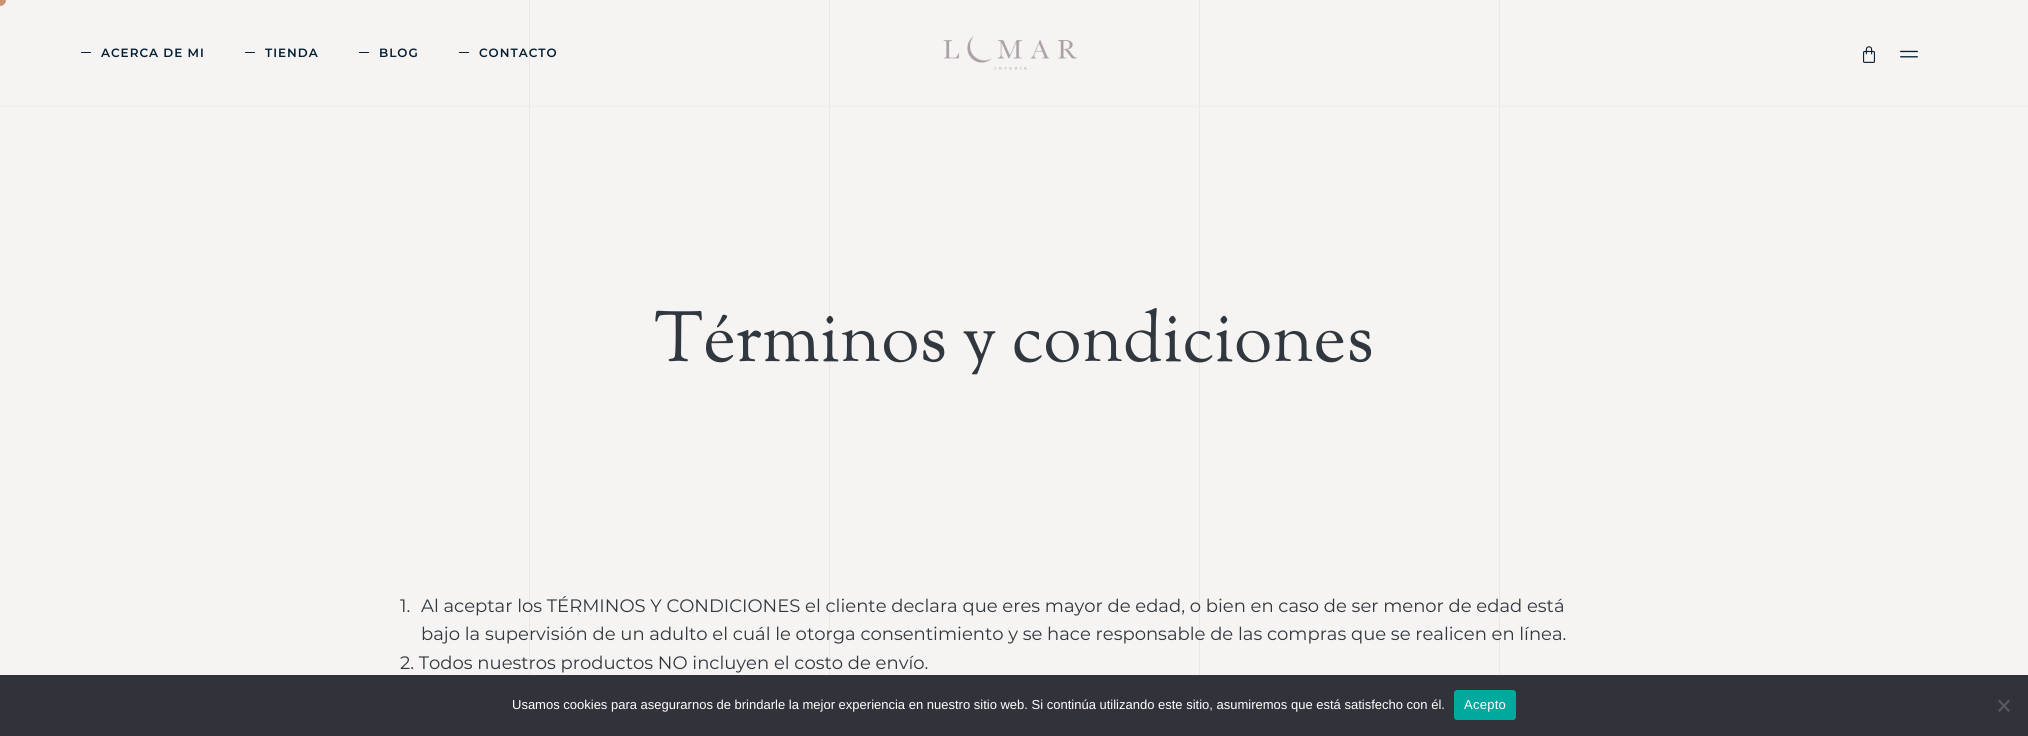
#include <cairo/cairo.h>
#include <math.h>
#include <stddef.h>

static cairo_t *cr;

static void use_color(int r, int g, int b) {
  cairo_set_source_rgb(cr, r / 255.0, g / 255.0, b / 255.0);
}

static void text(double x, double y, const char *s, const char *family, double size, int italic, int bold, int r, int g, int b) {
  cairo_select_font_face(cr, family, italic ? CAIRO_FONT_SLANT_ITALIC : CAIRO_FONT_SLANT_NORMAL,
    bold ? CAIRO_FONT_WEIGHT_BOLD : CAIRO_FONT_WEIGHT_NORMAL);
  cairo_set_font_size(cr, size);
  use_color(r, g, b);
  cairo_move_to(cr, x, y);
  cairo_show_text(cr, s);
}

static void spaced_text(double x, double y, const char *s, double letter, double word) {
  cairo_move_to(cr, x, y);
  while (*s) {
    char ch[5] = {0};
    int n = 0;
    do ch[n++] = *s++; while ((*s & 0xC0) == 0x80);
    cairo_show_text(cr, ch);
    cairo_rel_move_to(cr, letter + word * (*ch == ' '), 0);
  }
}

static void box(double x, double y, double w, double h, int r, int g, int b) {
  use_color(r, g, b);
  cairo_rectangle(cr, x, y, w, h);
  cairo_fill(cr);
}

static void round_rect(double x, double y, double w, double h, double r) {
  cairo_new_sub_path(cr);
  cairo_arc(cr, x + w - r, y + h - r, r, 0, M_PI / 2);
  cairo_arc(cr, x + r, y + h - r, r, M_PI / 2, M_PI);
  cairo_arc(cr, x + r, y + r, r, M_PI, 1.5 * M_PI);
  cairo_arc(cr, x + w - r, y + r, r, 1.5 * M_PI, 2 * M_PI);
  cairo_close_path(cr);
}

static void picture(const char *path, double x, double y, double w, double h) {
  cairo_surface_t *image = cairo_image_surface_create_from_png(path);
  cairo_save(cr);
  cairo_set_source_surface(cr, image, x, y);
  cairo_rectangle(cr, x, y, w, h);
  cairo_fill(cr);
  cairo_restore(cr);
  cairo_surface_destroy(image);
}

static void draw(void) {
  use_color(246, 244, 242);
  cairo_paint(cr);
  picture("img_01.png", 529, 0, 971, 675);
  use_color(203, 146, 116);
  cairo_arc(cr, 0, 0, 6, 0, 2 * M_PI);
  cairo_fill(cr);
  box(81, 52, 10, 1, 5, 31, 52);
  box(245, 52, 10, 1, 5, 31, 52);
  box(359, 52, 10, 1, 5, 31, 52);
  box(459, 52, 10, 1, 5, 31, 52);
  picture("img_02.png", 943, 36, 135, 34);
  picture("img_03.png", 1863, 46, 12, 17);
  picture("img_04.png", 1900, 50, 18, 8);
  box(0, 106, 2028, 1, 237, 237, 237);
  box(0, 675, 2028, 61, 50, 50, 58);
  use_color(0, 169, 157);
  round_rect(1454, 690, 62, 30, 3);
  cairo_fill(cr);
  use_color(89, 89, 93);
  cairo_new_path(cr);
  cairo_move_to(cr, 2008.5, 699.5);
  cairo_line_to(cr, 2010, 701);
  cairo_line_to(cr, 1999.5, 712);
  cairo_line_to(cr, 1998, 710.5);
  cairo_close_path(cr);
  cairo_fill(cr);
  cairo_new_path(cr);
  cairo_move_to(cr, 1998, 701);
  cairo_line_to(cr, 1999.5, 699.5);
  cairo_line_to(cr, 2010, 710.5);
  cairo_line_to(cr, 2008.5, 712);
  cairo_close_path(cr);
  cairo_fill(cr);
  cairo_select_font_face(cr, "Montserrat SemiBold", CAIRO_FONT_SLANT_NORMAL, CAIRO_FONT_WEIGHT_NORMAL);
  cairo_set_font_size(cr, 12);
  use_color(5, 31, 52);
  spaced_text(101, 57, "ACERCA DE MI", 1, 0);
  spaced_text(265, 57, "TIENDA", 1, 0);
  spaced_text(379, 57, "BLOG", 1, 0);
  spaced_text(479, 57, "CONTACTO", 1, 0);
  text(654, 361, "Términos y condiciones", "Sorts Mill Goudy", 70, 0, 0, 48, 55, 62);
  text(400, 612, "1.", "Montserrat", 18, 0, 0, 48, 55, 62);
  text(421, 612, "Al aceptar los TÉRMINOS Y CONDICIONES el cliente declara que eres mayor de edad, o bien en caso de ser menor de edad está", "Montserrat", 18, 0, 0, 48, 55, 62);
  text(421, 640, "bajo la supervisión de un adulto el cuál le otorga consentimiento y se hace responsable de las compras que se realicen en línea.", "Montserrat", 18, 0, 0, 48, 55, 62);
  text(400, 669, "2. Todos nuestros productos NO incluyen el costo de envío.", "Montserrat", 18, 0, 0, 48, 55, 62);
  text(512, 709, "Usamos cookies para asegurarnos de brindarle la mejor experiencia en nuestro sitio web. Si continúa utilizando este sitio, asumiremos que está satisfecho con él.", "Liberation Sans", 13, 0, 0, 255, 255, 255);
  spaced_text(1464, 709, "Acepto", 0.25, 0);
}

int main(void) {
  cairo_surface_t *surface = cairo_image_surface_create(CAIRO_FORMAT_RGB24, 2028, 736);
  cr = cairo_create(surface);
  cairo_font_options_t *options = cairo_font_options_create();
  cairo_font_options_set_hint_metrics(options, CAIRO_HINT_METRICS_OFF);
  cairo_font_options_set_hint_style(options, CAIRO_HINT_STYLE_NONE);
  cairo_set_font_options(cr, options);
  cairo_set_miter_limit(cr, 4);
  draw();
  cairo_surface_write_to_png(surface, "out.png");
  cairo_font_options_destroy(options);
  cairo_destroy(cr);
  cairo_surface_destroy(surface);
  return 0;
}
